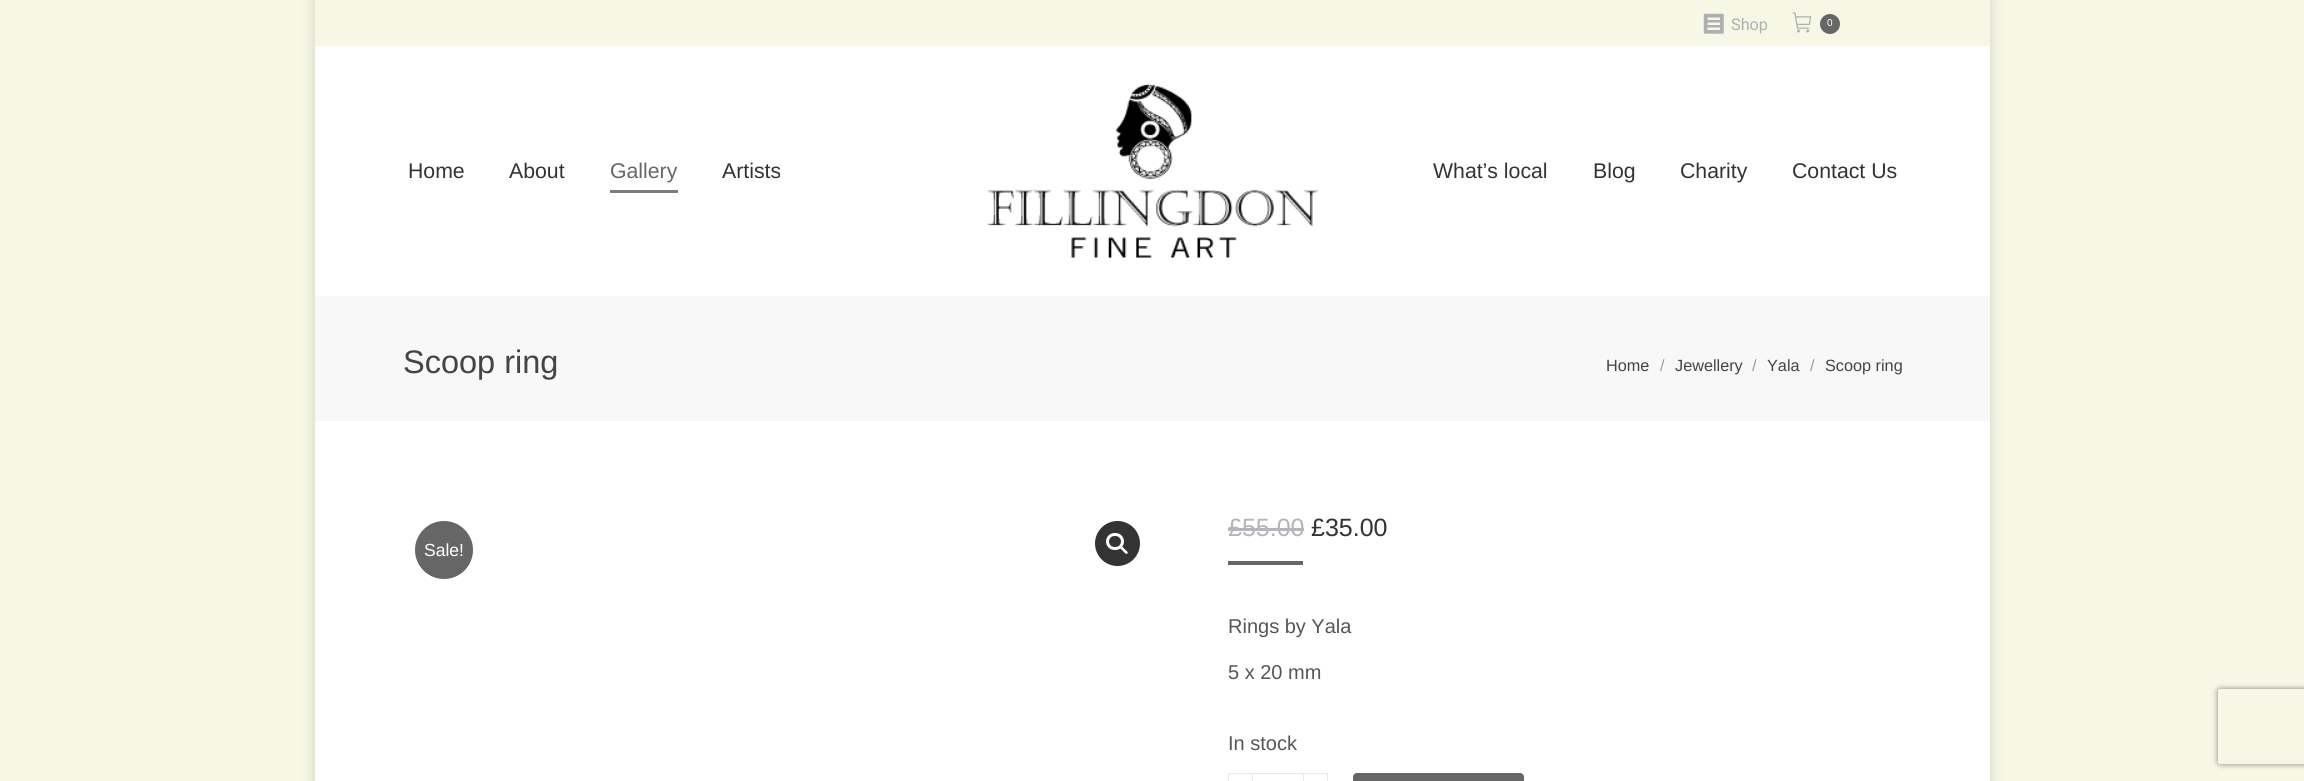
#include <cairo/cairo.h>
#include <math.h>
#include <stddef.h>

static cairo_t *cr;

static void use_color(int r, int g, int b) {
  cairo_set_source_rgb(cr, r / 255.0, g / 255.0, b / 255.0);
}

static void text(double x, double y, const char *s, const char *family, double size, int italic, int bold, int r, int g, int b) {
  cairo_select_font_face(cr, family, italic ? CAIRO_FONT_SLANT_ITALIC : CAIRO_FONT_SLANT_NORMAL,
    bold ? CAIRO_FONT_WEIGHT_BOLD : CAIRO_FONT_WEIGHT_NORMAL);
  cairo_set_font_size(cr, size);
  use_color(r, g, b);
  cairo_move_to(cr, x, y);
  cairo_show_text(cr, s);
}

static void box(double x, double y, double w, double h, int r, int g, int b) {
  use_color(r, g, b);
  cairo_rectangle(cr, x, y, w, h);
  cairo_fill(cr);
}

static void round_rect(double x, double y, double w, double h, double r) {
  cairo_new_sub_path(cr);
  cairo_arc(cr, x + w - r, y + h - r, r, 0, M_PI / 2);
  cairo_arc(cr, x + r, y + h - r, r, M_PI / 2, M_PI);
  cairo_arc(cr, x + r, y + r, r, M_PI, 1.5 * M_PI);
  cairo_arc(cr, x + w - r, y + r, r, 1.5 * M_PI, 2 * M_PI);
  cairo_close_path(cr);
}

static void shadow(double x, double y, double w, double h, double r, double blur, double alpha) {
  cairo_push_group_with_content(cr, CAIRO_CONTENT_ALPHA);
  cairo_set_operator(cr, CAIRO_OPERATOR_SOURCE);
  for (int i = 15; i >= -15 && fmin(w, h) + blur * i / 3 > 0; i -= 2) {
    double e = blur * i / 6;
    cairo_set_source_rgba(cr, 0, 0, 0, alpha * erfc((i - 1) / 8.5) / 2);
    round_rect(x - e, y - e, w + 2 * e, h + 2 * e, fmax(0, fmin(r + e + blur * .6, fmin(w, h) / 2 + e)));
    cairo_fill(cr);
  }
  cairo_pattern_t *soft = cairo_pop_group(cr);
  cairo_mask(cr, soft);
  cairo_pattern_destroy(soft);
}

static void picture(const char *path, double x, double y, double w, double h) {
  cairo_surface_t *image = cairo_image_surface_create_from_png(path);
  cairo_save(cr);
  cairo_set_source_surface(cr, image, x, y);
  cairo_rectangle(cr, x, y, w, h);
  cairo_fill(cr);
  cairo_restore(cr);
  cairo_surface_destroy(image);
}

static void draw(void) {
  use_color(247, 247, 229);
  cairo_paint(cr);
  use_color(0, 0, 0);
  shadow(315, 0, 1675, 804, 0, 7.5, 0.15);
  box(315, 46, 1675, 735, 255, 255, 255);
  box(315, 0, 1675, 46, 247, 247, 229);
  picture("img_01.png", 1703, 13, 21, 21);
  picture("img_02.png", 1792, 12, 20, 21);
  use_color(102, 102, 102);
  cairo_arc(cr, 1830, 24, 10, 0, 2 * M_PI);
  cairo_fill(cr);
  box(610, 190, 68, 3, 125, 125, 125);
  picture("img_03.png", 987, 83, 332, 175);
  box(315, 296, 1675, 125, 248, 248, 248);
  use_color(102, 102, 102);
  cairo_arc(cr, 444, 550, 29, 0, 2 * M_PI);
  cairo_fill(cr);
  use_color(51, 51, 51);
  cairo_arc(cr, 1117.5, 543.5, 22.5, 0, 2 * M_PI);
  cairo_fill(cr);
  round_rect(1107.5, 534.5, 15, 14, 7);
  use_color(255, 255, 255);
  cairo_set_line_width(cr, 3);
  cairo_stroke(cr);
  cairo_new_path(cr);
  cairo_move_to(cr, 1120, 546.5);
  cairo_curve_to(cr, 1121.5, 545, 1124, 548.5, 1124.5, 549);
  cairo_curve_to(cr, 1125.5, 550, 1128.5, 552, 1127.5, 553.5);
  cairo_curve_to(cr, 1126, 555, 1123.5, 551.5, 1123, 551);
  cairo_curve_to(cr, 1122, 550, 1119, 548, 1120, 546.5);
  cairo_close_path(cr);
  cairo_fill(cr);
  box(1228, 528, 76, 3, 180, 181, 187);
  box(1228, 561, 75, 4, 102, 102, 102);
  cairo_rectangle(cr, 1228.5, 773.5, 24, 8);
  use_color(234, 234, 234);
  cairo_set_line_width(cr, 1);
  cairo_stroke(cr);
  box(1253, 773, 50, 1, 232, 232, 232);
  cairo_rectangle(cr, 1303.5, 773.5, 24, 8);
  use_color(234, 234, 234);
  cairo_stroke(cr);
  use_color(102, 102, 102);
  round_rect(1353, 773, 171, 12, 4);
  cairo_fill(cr);
  cairo_save(cr);
  cairo_set_fill_rule(cr, CAIRO_FILL_RULE_EVEN_ODD);
  cairo_new_path(cr);
  cairo_move_to(cr, 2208, 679);
  cairo_line_to(cr, 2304, 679);
  cairo_line_to(cr, 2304, 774);
  cairo_line_to(cr, 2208, 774);
  cairo_close_path(cr);
  cairo_move_to(cr, 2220.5, 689);
  cairo_line_to(cr, 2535.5, 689);
  cairo_curve_to(cr, 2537, 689, 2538, 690, 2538, 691.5);
  cairo_line_to(cr, 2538, 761.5);
  cairo_curve_to(cr, 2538, 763, 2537, 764, 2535.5, 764);
  cairo_line_to(cr, 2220.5, 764);
  cairo_curve_to(cr, 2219, 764, 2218, 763, 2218, 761.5);
  cairo_line_to(cr, 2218, 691.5);
  cairo_curve_to(cr, 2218, 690, 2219, 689, 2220.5, 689);
  cairo_close_path(cr);
  cairo_clip(cr);
  use_color(128, 128, 128);
  shadow(2218, 689, 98, 75, 2.5, 3, 1);
  cairo_restore(cr);
  text(1731, 30, "Shop", "Roboto", 16.25, 0, 0, 174, 175, 181);
  text(1827, 26, "0", "Liberation Sans", 10, 0, 0, 255, 255, 255);
  text(408, 178, "Home", "Arimo", 21.25, 0, 0, 51, 51, 51);
  text(509, 178, "About", "Arimo", 21.25, 0, 0, 51, 51, 51);
  text(610, 178, "Gallery", "Arimo", 21.25, 0, 0, 102, 102, 102);
  text(722, 178, "Artists", "Arimo", 21.25, 0, 0, 51, 51, 51);
  text(1433, 178, "What’s local", "Arimo", 21.25, 0, 0, 51, 51, 51);
  text(1593, 178, "Blog", "Arimo", 21.25, 0, 0, 51, 51, 51);
  text(1680, 178, "Charity", "Arimo", 21.25, 0, 0, 51, 51, 51);
  text(1792, 178, "Contact Us", "Arimo", 21.25, 0, 0, 51, 51, 51);
  text(403, 373, "Scoop ring", "Arimo", 32.5, 0, 0, 68, 68, 68);
  text(1606, 371, "Home", "Arimo", 16.25, 0, 0, 68, 68, 68);
  text(1660, 371, "/", "Arimo", 16.25, 0, 0, 158, 158, 158);
  text(1675, 371, "Jewellery", "Arimo", 16.25, 0, 0, 68, 68, 68);
  text(1752, 371, "/", "Arimo", 16.25, 0, 0, 158, 158, 158);
  text(1767, 371, "Yala", "Arimo", 16.25, 0, 0, 68, 68, 68);
  text(1810, 371, "/", "Arimo", 16.25, 0, 0, 158, 158, 158);
  text(1825, 371, "Scoop ring", "Arimo", 16.25, 0, 0, 68, 68, 68);
  text(424, 556, "Sale!", "Arimo", 17.5, 0, 0, 255, 255, 255);
  text(1228, 536, "£55.00", "Arimo", 25, 0, 0, 180, 181, 187);
  text(1311, 536, "£35.00", "Arimo", 25, 0, 0, 51, 51, 51);
  text(1228, 633, "Rings by Yala", "Arimo", 20, 0, 0, 85, 86, 89);
  text(1228, 679, "5 x 20 mm", "Arimo", 20, 0, 0, 85, 86, 89);
  text(1228, 750, "In stock", "Arimo", 20, 0, 0, 85, 86, 89);
}

int main(void) {
  cairo_surface_t *surface = cairo_image_surface_create(CAIRO_FORMAT_RGB24, 2304, 781);
  cr = cairo_create(surface);
  cairo_font_options_t *options = cairo_font_options_create();
  cairo_font_options_set_hint_metrics(options, CAIRO_HINT_METRICS_OFF);
  cairo_font_options_set_hint_style(options, CAIRO_HINT_STYLE_NONE);
  cairo_set_font_options(cr, options);
  cairo_set_miter_limit(cr, 4);
  draw();
  cairo_surface_write_to_png(surface, "out.png");
  cairo_font_options_destroy(options);
  cairo_destroy(cr);
  cairo_surface_destroy(surface);
  return 0;
}
